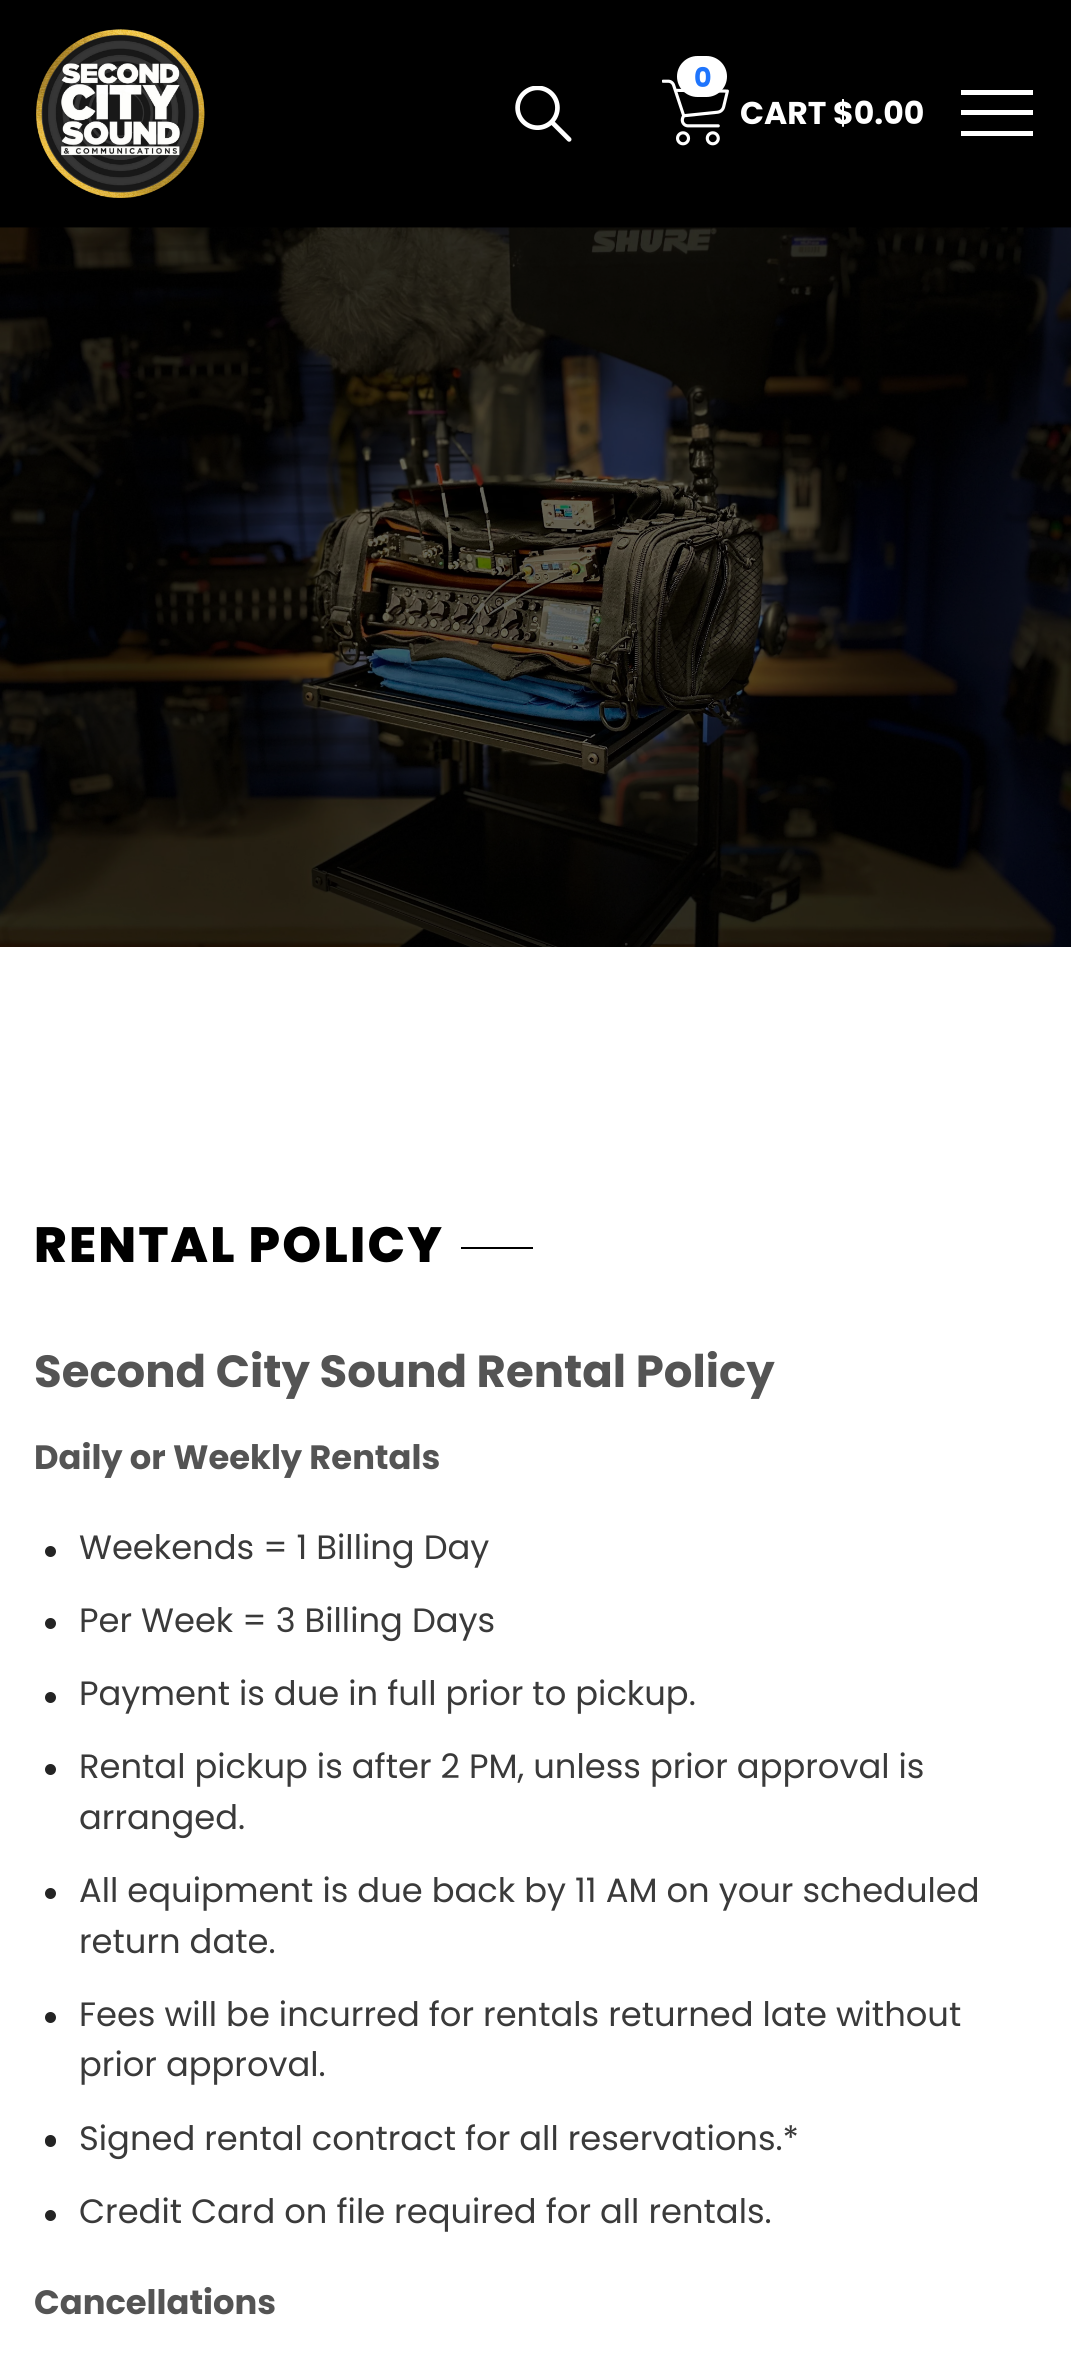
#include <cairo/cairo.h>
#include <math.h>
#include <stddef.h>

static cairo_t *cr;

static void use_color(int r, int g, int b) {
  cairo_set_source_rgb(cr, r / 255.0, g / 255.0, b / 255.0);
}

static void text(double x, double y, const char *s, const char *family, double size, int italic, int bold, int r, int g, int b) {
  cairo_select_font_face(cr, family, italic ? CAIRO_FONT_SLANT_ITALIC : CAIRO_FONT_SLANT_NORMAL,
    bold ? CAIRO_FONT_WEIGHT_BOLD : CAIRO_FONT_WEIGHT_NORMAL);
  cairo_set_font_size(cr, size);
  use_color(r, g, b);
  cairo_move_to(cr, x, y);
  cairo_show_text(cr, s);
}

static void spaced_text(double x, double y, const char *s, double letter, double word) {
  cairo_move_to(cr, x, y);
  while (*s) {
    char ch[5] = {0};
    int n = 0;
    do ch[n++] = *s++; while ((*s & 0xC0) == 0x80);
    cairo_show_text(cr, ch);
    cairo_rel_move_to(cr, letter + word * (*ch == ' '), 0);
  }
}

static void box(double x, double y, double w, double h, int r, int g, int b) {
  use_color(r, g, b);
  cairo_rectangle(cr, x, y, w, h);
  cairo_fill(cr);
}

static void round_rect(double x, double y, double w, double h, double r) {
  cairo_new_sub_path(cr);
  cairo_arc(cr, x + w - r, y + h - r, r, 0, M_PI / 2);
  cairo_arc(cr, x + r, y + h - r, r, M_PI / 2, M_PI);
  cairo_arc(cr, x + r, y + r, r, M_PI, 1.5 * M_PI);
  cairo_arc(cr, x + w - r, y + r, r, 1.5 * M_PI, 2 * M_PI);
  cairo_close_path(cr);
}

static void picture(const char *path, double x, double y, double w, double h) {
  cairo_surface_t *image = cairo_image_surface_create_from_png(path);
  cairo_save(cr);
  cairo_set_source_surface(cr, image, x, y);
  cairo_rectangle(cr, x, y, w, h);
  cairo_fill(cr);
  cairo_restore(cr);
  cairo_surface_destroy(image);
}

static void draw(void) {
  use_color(0, 0, 0);
  cairo_paint(cr);
  picture("img_01.png", 36, 29, 169, 169);
  picture("img_02.png", 515, 86, 57, 56);
  picture("img_03.png", 662, 79, 67, 67);
  use_color(255, 255, 255);
  round_rect(677, 56, 50, 41, 20.5);
  cairo_fill(cr);
  box(961, 110, 72, 5, 255, 255, 255);
  box(961, 90, 72, 5, 255, 255, 255);
  box(961, 131, 72, 5, 255, 255, 255);
  picture("img_04.png", 0, 227, 1071, 720);
  box(0, 947, 1071, 1413, 255, 255, 255);
  box(461, 1247, 72, 2, 0, 0, 0);
  use_color(36, 36, 36);
  cairo_arc(cr, 50.5, 1551.5, 5.5, 0, 2 * M_PI);
  cairo_fill(cr);
  cairo_arc(cr, 50.5, 1623.5, 5.5, 0, 2 * M_PI);
  cairo_fill(cr);
  cairo_arc(cr, 50.5, 1697.5, 5.5, 0, 2 * M_PI);
  cairo_fill(cr);
  cairo_arc(cr, 50.5, 1769.5, 5.5, 0, 2 * M_PI);
  cairo_fill(cr);
  cairo_arc(cr, 50.5, 1893.5, 5.5, 0, 2 * M_PI);
  cairo_fill(cr);
  cairo_arc(cr, 50.5, 2017.5, 5.5, 0, 2 * M_PI);
  cairo_fill(cr);
  round_rect(45, 2135, 11, 12, 5.5);
  cairo_fill(cr);
  cairo_arc(cr, 50.5, 2215.5, 5.5, 0, 2 * M_PI);
  cairo_fill(cr);
  text(694, 87, "0", "Poppins", 27, 0, 1, 31, 117, 253);
  text(740, 124, "CART $0.00", "Poppins", 31.5, 0, 1, 255, 255, 255);
  cairo_select_font_face(cr, "Poppins ExtraBold", CAIRO_FONT_SLANT_NORMAL, CAIRO_FONT_WEIGHT_NORMAL);
  cairo_set_font_size(cr, 49.5);
  use_color(0, 0, 0);
  spaced_text(34, 1262, "RENTAL POLICY", 2.25, 0);
  text(34, 1387, "Second City Sound Rental Policy", "Poppins", 45, 0, 1, 84, 84, 84);
  text(34, 1469, "Daily or Weekly Rentals", "Poppins", 33.75, 0, 1, 84, 84, 84);
  text(79, 1559, "Weekends = 1 Billing Day", "Poppins", 33.75, 0, 0, 58, 58, 58);
  text(79, 1632, "Per Week = 3 Billing Days", "Poppins", 33.75, 0, 0, 58, 58, 58);
  text(79, 1705, "Payment is due in full prior to pickup.", "Poppins", 33.75, 0, 0, 58, 58, 58);
  text(79, 1778, "Rental pickup is after 2 PM, unless prior approval is", "Poppins", 33.75, 0, 0, 58, 58, 58);
  text(79, 1829, "arranged.", "Poppins", 33.75, 0, 0, 58, 58, 58);
  text(79, 1902, "All equipment is due back by 11 AM on your scheduled", "Poppins", 33.75, 0, 0, 58, 58, 58);
  text(79, 1953, "return date.", "Poppins", 33.75, 0, 0, 58, 58, 58);
  text(79, 2026, "Fees will be incurred for rentals returned late without", "Poppins", 33.75, 0, 0, 58, 58, 58);
  text(79, 2076, "prior approval.", "Poppins", 33.75, 0, 0, 58, 58, 58);
  text(79, 2150, "Signed rental contract for all reservations.*", "Poppins", 33.75, 0, 0, 58, 58, 58);
  text(79, 2223, "Credit Card on file required for all rentals.", "Poppins", 33.75, 0, 0, 58, 58, 58);
  text(34, 2314, "Cancellations", "Poppins", 33.75, 0, 1, 84, 84, 84);
}

int main(void) {
  cairo_surface_t *surface = cairo_image_surface_create(CAIRO_FORMAT_RGB24, 1071, 2360);
  cr = cairo_create(surface);
  cairo_font_options_t *options = cairo_font_options_create();
  cairo_font_options_set_hint_metrics(options, CAIRO_HINT_METRICS_OFF);
  cairo_font_options_set_hint_style(options, CAIRO_HINT_STYLE_NONE);
  cairo_set_font_options(cr, options);
  cairo_set_miter_limit(cr, 4);
  draw();
  cairo_surface_write_to_png(surface, "out.png");
  cairo_font_options_destroy(options);
  cairo_destroy(cr);
  cairo_surface_destroy(surface);
  return 0;
}
